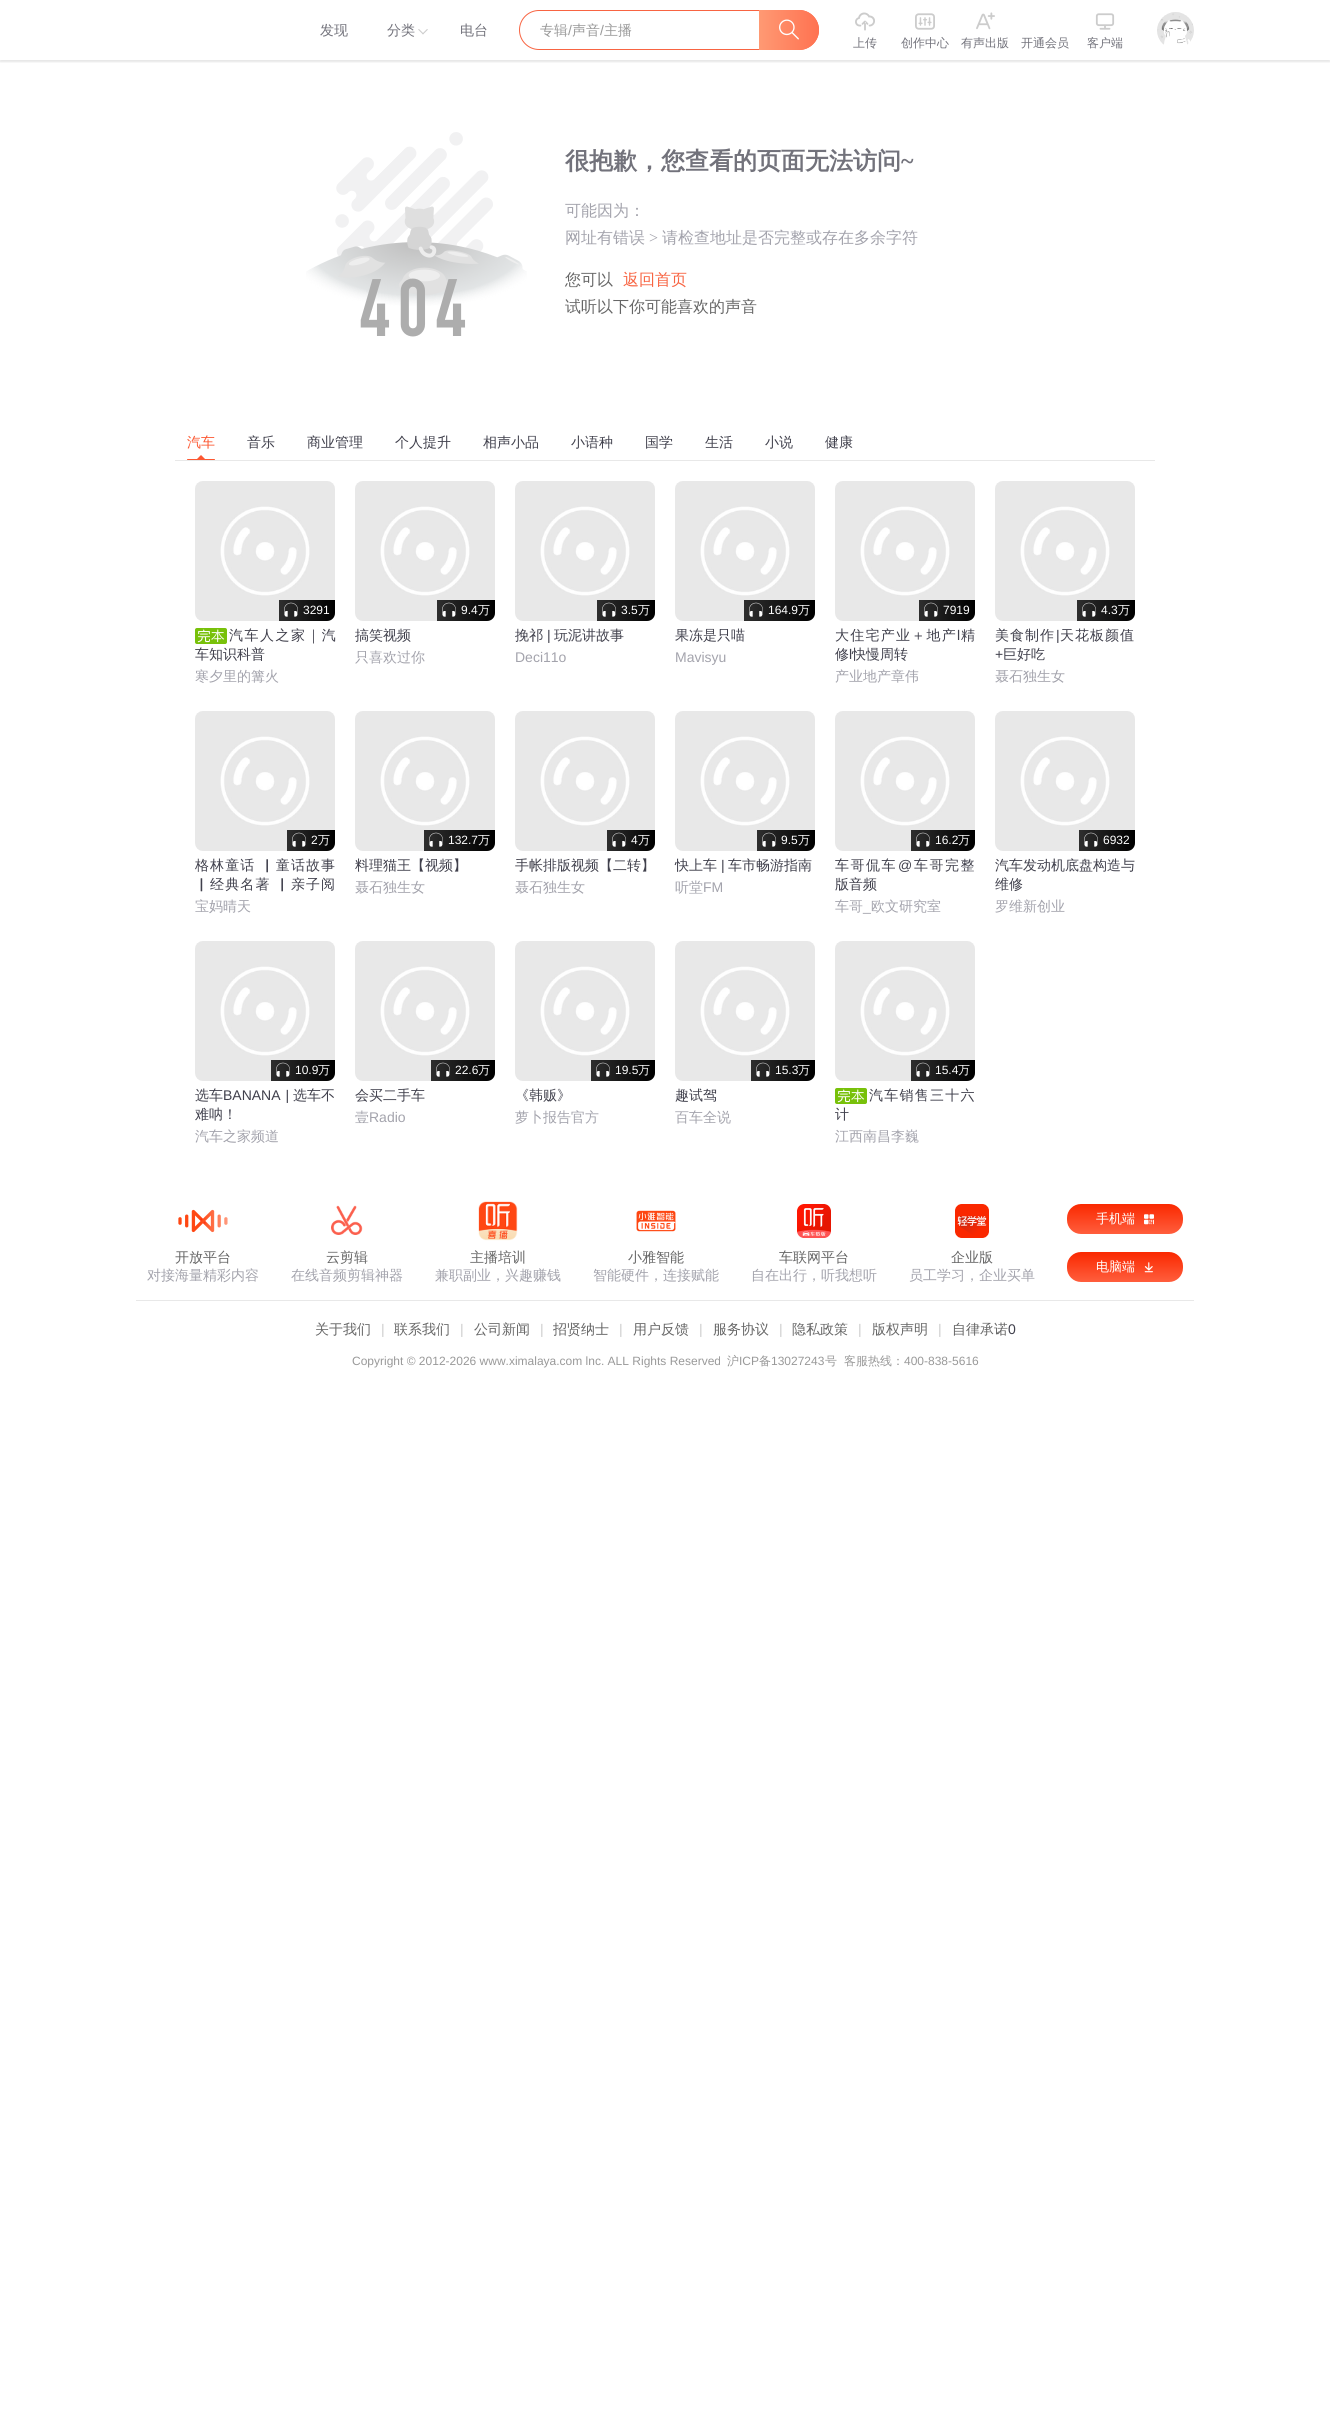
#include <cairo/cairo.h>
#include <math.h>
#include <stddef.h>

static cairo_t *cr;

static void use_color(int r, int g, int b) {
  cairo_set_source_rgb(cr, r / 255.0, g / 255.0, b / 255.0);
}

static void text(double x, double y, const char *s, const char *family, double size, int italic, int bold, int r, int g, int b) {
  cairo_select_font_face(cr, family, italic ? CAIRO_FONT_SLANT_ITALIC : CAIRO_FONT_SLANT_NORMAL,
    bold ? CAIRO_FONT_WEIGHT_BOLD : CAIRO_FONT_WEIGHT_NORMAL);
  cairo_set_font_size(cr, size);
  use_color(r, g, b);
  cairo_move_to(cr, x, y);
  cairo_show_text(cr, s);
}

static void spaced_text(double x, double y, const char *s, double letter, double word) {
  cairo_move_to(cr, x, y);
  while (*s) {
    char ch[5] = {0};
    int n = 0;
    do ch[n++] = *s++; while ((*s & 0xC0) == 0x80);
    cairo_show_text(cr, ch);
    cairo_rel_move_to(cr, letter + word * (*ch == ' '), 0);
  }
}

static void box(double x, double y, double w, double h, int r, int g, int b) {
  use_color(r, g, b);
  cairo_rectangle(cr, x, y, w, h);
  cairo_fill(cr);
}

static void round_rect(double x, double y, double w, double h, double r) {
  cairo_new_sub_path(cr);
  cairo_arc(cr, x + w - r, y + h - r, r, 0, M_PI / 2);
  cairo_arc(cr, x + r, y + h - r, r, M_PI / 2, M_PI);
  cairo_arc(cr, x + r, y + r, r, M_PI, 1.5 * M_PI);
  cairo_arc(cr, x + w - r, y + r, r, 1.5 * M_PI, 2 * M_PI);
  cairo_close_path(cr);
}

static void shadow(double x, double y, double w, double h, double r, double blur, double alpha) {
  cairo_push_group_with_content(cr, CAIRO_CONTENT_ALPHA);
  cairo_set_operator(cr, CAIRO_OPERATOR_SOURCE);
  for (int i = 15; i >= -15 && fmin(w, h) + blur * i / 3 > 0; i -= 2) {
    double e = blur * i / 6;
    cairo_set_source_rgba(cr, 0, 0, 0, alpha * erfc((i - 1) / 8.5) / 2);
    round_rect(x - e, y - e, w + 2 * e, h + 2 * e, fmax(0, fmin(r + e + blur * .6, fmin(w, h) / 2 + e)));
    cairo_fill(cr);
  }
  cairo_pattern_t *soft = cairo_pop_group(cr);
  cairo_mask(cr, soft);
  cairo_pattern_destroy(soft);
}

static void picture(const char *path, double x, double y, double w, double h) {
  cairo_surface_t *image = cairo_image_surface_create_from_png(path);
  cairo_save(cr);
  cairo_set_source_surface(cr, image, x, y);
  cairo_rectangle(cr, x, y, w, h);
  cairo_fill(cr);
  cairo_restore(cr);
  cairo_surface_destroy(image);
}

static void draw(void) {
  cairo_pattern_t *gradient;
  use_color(255, 255, 255);
  cairo_paint(cr);
  cairo_save(cr);
  cairo_rectangle(cr, 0, 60, 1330, 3);
  cairo_clip(cr);
  use_color(0, 0, 0);
  shadow(0, 2, 1330, 60, 0, 1, 0.1);
  cairo_restore(cr);
  use_color(204, 204, 204);
  cairo_new_path(cr);
  cairo_move_to(cr, 428, 29.5);
  cairo_line_to(cr, 423, 34.5);
  cairo_line_to(cr, 422.5, 33.5);
  cairo_line_to(cr, 427, 29);
  cairo_close_path(cr);
  cairo_fill(cr);
  cairo_new_path(cr);
  cairo_move_to(cr, 423.5, 33.5);
  cairo_line_to(cr, 423, 34.5);
  cairo_line_to(cr, 418, 29.5);
  cairo_line_to(cr, 419, 29);
  cairo_close_path(cr);
  cairo_fill(cr);
  round_rect(519.5, 10.5, 299, 39, 19.5);
  use_color(248, 100, 66);
  cairo_set_line_width(cr, 1);
  cairo_stroke(cr);
  gradient = cairo_pattern_create_linear(759, 30, 819, 30);
  cairo_pattern_add_color_stop_rgba(gradient, 0.01, 1, 0.6, 0.451, 1);
  cairo_pattern_add_color_stop_rgba(gradient, 0.99, 1, 0.447, 0.318, 1);
  cairo_set_source(cr, gradient);
  cairo_pattern_destroy(gradient);
  cairo_new_path(cr);
  cairo_move_to(cr, 759, 10);
  cairo_line_to(cr, 799, 10);
  cairo_curve_to(cr, 810, 10, 819, 19, 819, 30);
  cairo_curve_to(cr, 819, 41, 810, 50, 799, 50);
  cairo_line_to(cr, 759, 50);
  cairo_close_path(cr);
  cairo_fill(cr);
  picture("img_01.png", 779, 19, 20, 21);
  picture("img_02.png", 855, 12, 20, 19);
  picture("img_03.png", 915, 13, 20, 17);
  picture("img_04.png", 976, 12, 19, 18);
  picture("img_05.png", 1095, 13, 20, 17);
  picture("img_06.png", 1157, 12, 37, 33);
  picture("img_07.png", 306, 132, 221, 205);
  box(175, 460, 980, 1, 232, 232, 232);
  use_color(252, 88, 50);
  cairo_new_path(cr);
  cairo_move_to(cr, 205, 459);
  cairo_line_to(cr, 197, 459);
  cairo_line_to(cr, 201, 455);
  cairo_close_path(cr);
  cairo_fill(cr);
  round_rect(187, 459, 28, 1, 0.5);
  cairo_fill(cr);
  picture("img_08.png", 195, 481, 140, 140);
  gradient = cairo_pattern_create_linear(279, 611, 335, 611);
  cairo_pattern_add_color_stop_rgba(gradient, 0, 0, 0, 0, 0.8);
  cairo_pattern_add_color_stop_rgba(gradient, 0.97, 0, 0, 0, 1);
  cairo_set_source(cr, gradient);
  cairo_pattern_destroy(gradient);
  cairo_new_path(cr);
  cairo_move_to(cr, 279, 600);
  cairo_line_to(cr, 335, 600);
  cairo_line_to(cr, 335, 613);
  cairo_curve_to(cr, 335, 617.5, 331.5, 621, 327, 621);
  cairo_line_to(cr, 279, 621);
  cairo_close_path(cr);
  cairo_fill(cr);
  picture("img_09.png", 284, 602, 14, 15);
  picture("img_10.png", 195, 628, 32, 16);
  picture("img_11.png", 355, 481, 140, 140);
  gradient = cairo_pattern_create_linear(437, 611, 495, 611);
  cairo_pattern_add_color_stop_rgba(gradient, 0, 0, 0, 0, 0.8);
  cairo_pattern_add_color_stop_rgba(gradient, 0.97, 0, 0, 0, 1);
  cairo_set_source(cr, gradient);
  cairo_pattern_destroy(gradient);
  cairo_new_path(cr);
  cairo_move_to(cr, 437, 600);
  cairo_line_to(cr, 495, 600);
  cairo_line_to(cr, 495, 613);
  cairo_curve_to(cr, 495, 617.5, 491.5, 621, 487, 621);
  cairo_line_to(cr, 437, 621);
  cairo_close_path(cr);
  cairo_fill(cr);
  picture("img_12.png", 442, 602, 14, 15);
  picture("img_08.png", 515, 481, 140, 140);
  gradient = cairo_pattern_create_linear(597, 611, 655, 611);
  cairo_pattern_add_color_stop_rgba(gradient, 0, 0, 0, 0, 0.8);
  cairo_pattern_add_color_stop_rgba(gradient, 0.97, 0, 0, 0, 1);
  cairo_set_source(cr, gradient);
  cairo_pattern_destroy(gradient);
  cairo_new_path(cr);
  cairo_move_to(cr, 597, 600);
  cairo_line_to(cr, 655, 600);
  cairo_line_to(cr, 655, 613);
  cairo_curve_to(cr, 655, 617.5, 651.5, 621, 647, 621);
  cairo_line_to(cr, 597, 621);
  cairo_close_path(cr);
  cairo_fill(cr);
  picture("img_12.png", 602, 602, 14, 15);
  picture("img_13.png", 675, 481, 140, 140);
  gradient = cairo_pattern_create_linear(744, 611, 815, 611);
  cairo_pattern_add_color_stop_rgba(gradient, 0, 0, 0, 0, 0.8);
  cairo_pattern_add_color_stop_rgba(gradient, 0.97, 0, 0, 0, 1);
  cairo_set_source(cr, gradient);
  cairo_pattern_destroy(gradient);
  cairo_new_path(cr);
  cairo_move_to(cr, 744, 600);
  cairo_line_to(cr, 815, 600);
  cairo_line_to(cr, 815, 613);
  cairo_curve_to(cr, 815, 617.5, 811.5, 621, 807, 621);
  cairo_line_to(cr, 744, 621);
  cairo_close_path(cr);
  cairo_fill(cr);
  picture("img_14.png", 749, 602, 14, 15);
  picture("img_08.png", 835, 481, 140, 140);
  gradient = cairo_pattern_create_linear(919, 611, 975, 611);
  cairo_pattern_add_color_stop_rgba(gradient, 0, 0, 0, 0, 0.8);
  cairo_pattern_add_color_stop_rgba(gradient, 0.97, 0, 0, 0, 1);
  cairo_set_source(cr, gradient);
  cairo_pattern_destroy(gradient);
  cairo_new_path(cr);
  cairo_move_to(cr, 919, 600);
  cairo_line_to(cr, 975, 600);
  cairo_line_to(cr, 975, 613);
  cairo_curve_to(cr, 975, 617.5, 971.5, 621, 967, 621);
  cairo_line_to(cr, 919, 621);
  cairo_close_path(cr);
  cairo_fill(cr);
  picture("img_09.png", 924, 602, 14, 15);
  picture("img_15.png", 995, 481, 140, 140);
  gradient = cairo_pattern_create_linear(1077, 611, 1135, 611);
  cairo_pattern_add_color_stop_rgba(gradient, 0, 0, 0, 0, 0.8);
  cairo_pattern_add_color_stop_rgba(gradient, 0.97, 0, 0, 0, 1);
  cairo_set_source(cr, gradient);
  cairo_pattern_destroy(gradient);
  cairo_new_path(cr);
  cairo_move_to(cr, 1077, 600);
  cairo_line_to(cr, 1135, 600);
  cairo_line_to(cr, 1135, 613);
  cairo_curve_to(cr, 1135, 617.5, 1131.5, 621, 1127, 621);
  cairo_line_to(cr, 1077, 621);
  cairo_close_path(cr);
  cairo_fill(cr);
  picture("img_12.png", 1082, 602, 14, 15);
  picture("img_08.png", 195, 711, 140, 140);
  gradient = cairo_pattern_create_linear(287, 841, 335, 841);
  cairo_pattern_add_color_stop_rgba(gradient, 0, 0, 0, 0, 0.8);
  cairo_pattern_add_color_stop_rgba(gradient, 0.97, 0, 0, 0, 1);
  cairo_set_source(cr, gradient);
  cairo_pattern_destroy(gradient);
  cairo_new_path(cr);
  cairo_move_to(cr, 287, 830);
  cairo_line_to(cr, 335, 830);
  cairo_line_to(cr, 335, 843);
  cairo_curve_to(cr, 335, 847.5, 331.5, 851, 327, 851);
  cairo_line_to(cr, 287, 851);
  cairo_close_path(cr);
  cairo_fill(cr);
  picture("img_16.png", 292, 832, 14, 15);
  picture("img_11.png", 355, 711, 140, 140);
  gradient = cairo_pattern_create_linear(424, 841, 495, 841);
  cairo_pattern_add_color_stop_rgba(gradient, 0, 0, 0, 0, 0.8);
  cairo_pattern_add_color_stop_rgba(gradient, 0.97, 0, 0, 0, 1);
  cairo_set_source(cr, gradient);
  cairo_pattern_destroy(gradient);
  cairo_new_path(cr);
  cairo_move_to(cr, 424, 830);
  cairo_line_to(cr, 495, 830);
  cairo_line_to(cr, 495, 843);
  cairo_curve_to(cr, 495, 847.5, 491.5, 851, 487, 851);
  cairo_line_to(cr, 424, 851);
  cairo_close_path(cr);
  cairo_fill(cr);
  picture("img_14.png", 429, 832, 14, 15);
  picture("img_08.png", 515, 711, 140, 140);
  gradient = cairo_pattern_create_linear(607, 841, 655, 841);
  cairo_pattern_add_color_stop_rgba(gradient, 0, 0, 0, 0, 0.8);
  cairo_pattern_add_color_stop_rgba(gradient, 0.97, 0, 0, 0, 1);
  cairo_set_source(cr, gradient);
  cairo_pattern_destroy(gradient);
  cairo_new_path(cr);
  cairo_move_to(cr, 607, 830);
  cairo_line_to(cr, 655, 830);
  cairo_line_to(cr, 655, 843);
  cairo_curve_to(cr, 655, 847.5, 651.5, 851, 647, 851);
  cairo_line_to(cr, 607, 851);
  cairo_close_path(cr);
  cairo_fill(cr);
  picture("img_16.png", 612, 832, 14, 15);
  picture("img_13.png", 675, 711, 140, 140);
  gradient = cairo_pattern_create_linear(757, 841, 815, 841);
  cairo_pattern_add_color_stop_rgba(gradient, 0, 0, 0, 0, 0.8);
  cairo_pattern_add_color_stop_rgba(gradient, 0.97, 0, 0, 0, 1);
  cairo_set_source(cr, gradient);
  cairo_pattern_destroy(gradient);
  cairo_new_path(cr);
  cairo_move_to(cr, 757, 830);
  cairo_line_to(cr, 815, 830);
  cairo_line_to(cr, 815, 843);
  cairo_curve_to(cr, 815, 847.5, 811.5, 851, 807, 851);
  cairo_line_to(cr, 757, 851);
  cairo_close_path(cr);
  cairo_fill(cr);
  picture("img_12.png", 762, 832, 14, 15);
  picture("img_08.png", 835, 711, 140, 140);
  gradient = cairo_pattern_create_linear(911, 841, 975, 841);
  cairo_pattern_add_color_stop_rgba(gradient, 0, 0, 0, 0, 0.8);
  cairo_pattern_add_color_stop_rgba(gradient, 0.97, 0, 0, 0, 1);
  cairo_set_source(cr, gradient);
  cairo_pattern_destroy(gradient);
  cairo_new_path(cr);
  cairo_move_to(cr, 911, 830);
  cairo_line_to(cr, 975, 830);
  cairo_line_to(cr, 975, 843);
  cairo_curve_to(cr, 975, 847.5, 971.5, 851, 967, 851);
  cairo_line_to(cr, 911, 851);
  cairo_close_path(cr);
  cairo_fill(cr);
  picture("img_17.png", 916, 832, 14, 15);
  picture("img_15.png", 995, 711, 140, 140);
  gradient = cairo_pattern_create_linear(1079, 841, 1135, 841);
  cairo_pattern_add_color_stop_rgba(gradient, 0, 0, 0, 0, 0.8);
  cairo_pattern_add_color_stop_rgba(gradient, 0.97, 0, 0, 0, 1);
  cairo_set_source(cr, gradient);
  cairo_pattern_destroy(gradient);
  cairo_new_path(cr);
  cairo_move_to(cr, 1079, 830);
  cairo_line_to(cr, 1135, 830);
  cairo_line_to(cr, 1135, 843);
  cairo_curve_to(cr, 1135, 847.5, 1131.5, 851, 1127, 851);
  cairo_line_to(cr, 1079, 851);
  cairo_close_path(cr);
  cairo_fill(cr);
  picture("img_09.png", 1084, 832, 14, 15);
  picture("img_08.png", 195, 941, 140, 140);
  gradient = cairo_pattern_create_linear(271, 1071, 335, 1071);
  cairo_pattern_add_color_stop_rgba(gradient, 0, 0, 0, 0, 0.8);
  cairo_pattern_add_color_stop_rgba(gradient, 0.97, 0, 0, 0, 1);
  cairo_set_source(cr, gradient);
  cairo_pattern_destroy(gradient);
  cairo_new_path(cr);
  cairo_move_to(cr, 271, 1060);
  cairo_line_to(cr, 335, 1060);
  cairo_line_to(cr, 335, 1073);
  cairo_curve_to(cr, 335, 1077.5, 331.5, 1081, 327, 1081);
  cairo_line_to(cr, 271, 1081);
  cairo_close_path(cr);
  cairo_fill(cr);
  picture("img_17.png", 276, 1062, 14, 15);
  picture("img_11.png", 355, 941, 140, 140);
  gradient = cairo_pattern_create_linear(431, 1071, 495, 1071);
  cairo_pattern_add_color_stop_rgba(gradient, 0, 0, 0, 0, 0.8);
  cairo_pattern_add_color_stop_rgba(gradient, 0.97, 0, 0, 0, 1);
  cairo_set_source(cr, gradient);
  cairo_pattern_destroy(gradient);
  cairo_new_path(cr);
  cairo_move_to(cr, 431, 1060);
  cairo_line_to(cr, 495, 1060);
  cairo_line_to(cr, 495, 1073);
  cairo_curve_to(cr, 495, 1077.5, 491.5, 1081, 487, 1081);
  cairo_line_to(cr, 431, 1081);
  cairo_close_path(cr);
  cairo_fill(cr);
  picture("img_17.png", 436, 1062, 14, 15);
  picture("img_08.png", 515, 941, 140, 140);
  gradient = cairo_pattern_create_linear(591, 1071, 655, 1071);
  cairo_pattern_add_color_stop_rgba(gradient, 0, 0, 0, 0, 0.8);
  cairo_pattern_add_color_stop_rgba(gradient, 0.97, 0, 0, 0, 1);
  cairo_set_source(cr, gradient);
  cairo_pattern_destroy(gradient);
  cairo_new_path(cr);
  cairo_move_to(cr, 591, 1060);
  cairo_line_to(cr, 655, 1060);
  cairo_line_to(cr, 655, 1073);
  cairo_curve_to(cr, 655, 1077.5, 651.5, 1081, 647, 1081);
  cairo_line_to(cr, 591, 1081);
  cairo_close_path(cr);
  cairo_fill(cr);
  picture("img_17.png", 596, 1062, 14, 15);
  picture("img_13.png", 675, 941, 140, 140);
  gradient = cairo_pattern_create_linear(751, 1071, 815, 1071);
  cairo_pattern_add_color_stop_rgba(gradient, 0, 0, 0, 0, 0.8);
  cairo_pattern_add_color_stop_rgba(gradient, 0.97, 0, 0, 0, 1);
  cairo_set_source(cr, gradient);
  cairo_pattern_destroy(gradient);
  cairo_new_path(cr);
  cairo_move_to(cr, 751, 1060);
  cairo_line_to(cr, 815, 1060);
  cairo_line_to(cr, 815, 1073);
  cairo_curve_to(cr, 815, 1077.5, 811.5, 1081, 807, 1081);
  cairo_line_to(cr, 751, 1081);
  cairo_close_path(cr);
  cairo_fill(cr);
  picture("img_17.png", 756, 1062, 14, 15);
  picture("img_08.png", 835, 941, 140, 140);
  gradient = cairo_pattern_create_linear(911, 1071, 975, 1071);
  cairo_pattern_add_color_stop_rgba(gradient, 0, 0, 0, 0, 0.8);
  cairo_pattern_add_color_stop_rgba(gradient, 0.97, 0, 0, 0, 1);
  cairo_set_source(cr, gradient);
  cairo_pattern_destroy(gradient);
  cairo_new_path(cr);
  cairo_move_to(cr, 911, 1060);
  cairo_line_to(cr, 975, 1060);
  cairo_line_to(cr, 975, 1073);
  cairo_curve_to(cr, 975, 1077.5, 971.5, 1081, 967, 1081);
  cairo_line_to(cr, 911, 1081);
  cairo_close_path(cr);
  cairo_fill(cr);
  picture("img_17.png", 916, 1062, 14, 15);
  picture("img_10.png", 835, 1088, 32, 16);
  box(136, 1300, 1058, 1, 232, 232, 232);
  picture("img_18.png", 178, 1209, 50, 24);
  picture("img_19.png", 331, 1205, 32, 30);
  picture("img_20.png", 478, 1201, 40, 40);
  picture("img_21.png", 636, 1210, 40, 22);
  picture("img_22.png", 797, 1204, 34, 34);
  picture("img_23.png", 955, 1204, 34, 34);
  gradient = cairo_pattern_create_linear(1125, 1204, 1125, 1234);
  cairo_pattern_add_color_stop_rgba(gradient, 0, 0.98, 0.157, 0, 1);
  cairo_pattern_add_color_stop_rgba(gradient, 1, 1, 0.369, 0.239, 1);
  cairo_set_source(cr, gradient);
  cairo_pattern_destroy(gradient);
  round_rect(1067, 1204, 116, 30, 14);
  cairo_fill(cr);
  picture("img_24.png", 1144, 1214, 10, 11);
  gradient = cairo_pattern_create_linear(1125, 1252, 1125, 1282);
  cairo_pattern_add_color_stop_rgba(gradient, 0, 0.98, 0.157, 0, 1);
  cairo_pattern_add_color_stop_rgba(gradient, 1, 1, 0.369, 0.239, 1);
  cairo_set_source(cr, gradient);
  cairo_pattern_destroy(gradient);
  round_rect(1067, 1252, 116, 30, 14);
  cairo_fill(cr);
  picture("img_25.png", 1144, 1262, 9, 11);
  text(320, 35, "发现", "WenQuanYi Zen Hei Medium", 14, 0, 0, 114, 114, 123);
  text(387, 35, "分类", "WenQuanYi Zen Hei Medium", 14, 0, 0, 114, 114, 123);
  text(460, 35, "电台", "WenQuanYi Zen Hei Medium", 14, 0, 0, 114, 114, 123);
  text(540, 35, "专辑", "WenQuanYi Zen Hei Medium", 14, 0, 0, 153, 153, 153);
  text(568, 35, "/", "Liberation Sans", 14, 0, 0, 153, 153, 153);
  text(572, 35, "声音", "WenQuanYi Zen Hei Medium", 14, 0, 0, 153, 153, 153);
  text(600, 35, "/", "Liberation Sans", 14, 0, 0, 153, 153, 153);
  text(604, 35, "主播", "WenQuanYi Zen Hei Medium", 14, 0, 0, 153, 153, 153);
  text(853, 47, "上传", "WenQuanYi Zen Hei Medium", 12, 0, 0, 114, 114, 123);
  text(901, 47, "创作中心", "WenQuanYi Zen Hei Medium", 12, 0, 0, 114, 114, 123);
  text(961, 47, "有声出版", "WenQuanYi Zen Hei Medium", 12, 0, 0, 114, 114, 123);
  text(1021, 47, "开通会员", "WenQuanYi Zen Hei Medium", 12, 0, 0, 114, 114, 123);
  text(1087, 47, "客户端", "WenQuanYi Zen Hei Medium", 12, 0, 0, 114, 114, 123);
  text(565, 169, "很抱歉，您查看的页面无法访问", "WenQuanYi Zen Hei", 24, 0, 1, 114, 114, 123);
  text(901, 169, "~", "Liberation Serif", 24, 0, 1, 114, 114, 123);
  text(565, 216, "可能因为：", "WenQuanYi Zen Hei Medium", 16, 0, 0, 163, 163, 172);
  text(565, 243, "网址有错误", "WenQuanYi Zen Hei Medium", 16, 0, 0, 163, 163, 172);
  text(649, 243, ">", "Liberation Serif", 16, 0, 0, 163, 163, 172);
  text(662, 243, "请检查地址是否完整或存在多余字符", "WenQuanYi Zen Hei Medium", 16, 0, 0, 163, 163, 172);
  text(565, 285, "您可以", "WenQuanYi Zen Hei Medium", 16, 0, 0, 102, 102, 102);
  text(623, 285, "返回首页", "WenQuanYi Zen Hei Medium", 16, 0, 0, 248, 100, 66);
  text(565, 312, "试听以下你可能喜欢的声音", "WenQuanYi Zen Hei Medium", 16, 0, 0, 102, 102, 102);
  text(187, 447, "汽车", "WenQuanYi Zen Hei Medium", 14, 0, 0, 252, 88, 50);
  text(247, 447, "音乐", "WenQuanYi Zen Hei Medium", 14, 0, 0, 64, 64, 76);
  text(307, 447, "商业管理", "WenQuanYi Zen Hei Medium", 14, 0, 0, 64, 64, 76);
  text(395, 447, "个人提升", "WenQuanYi Zen Hei Medium", 14, 0, 0, 64, 64, 76);
  text(483, 447, "相声小品", "WenQuanYi Zen Hei Medium", 14, 0, 0, 64, 64, 76);
  text(571, 447, "小语种", "WenQuanYi Zen Hei Medium", 14, 0, 0, 64, 64, 76);
  text(645, 447, "国学", "WenQuanYi Zen Hei Medium", 14, 0, 0, 64, 64, 76);
  text(705, 447, "生活", "WenQuanYi Zen Hei Medium", 14, 0, 0, 64, 64, 76);
  text(765, 447, "小说", "WenQuanYi Zen Hei Medium", 14, 0, 0, 64, 64, 76);
  text(825, 447, "健康", "WenQuanYi Zen Hei Medium", 14, 0, 0, 64, 64, 76);
  text(303, 614, "3291", "Liberation Sans", 12, 0, 0, 255, 255, 255);
  cairo_select_font_face(cr, "WenQuanYi Zen Hei Medium", CAIRO_FONT_SLANT_NORMAL, CAIRO_FONT_WEIGHT_NORMAL);
  cairo_set_font_size(cr, 14);
  use_color(64, 64, 76);
  spaced_text(229, 640, "汽车人之家｜汽", 1.5, 0);
  text(195, 659, "车知识科普", "WenQuanYi Zen Hei Medium", 14, 0, 0, 64, 64, 76);
  text(195, 681, "寒夕里的篝火", "WenQuanYi Zen Hei Medium", 14, 0, 0, 163, 163, 172);
  text(461, 614, "9.4", "Liberation Sans", 12, 0, 0, 255, 255, 255);
  text(478, 614, "万", "WenQuanYi Zen Hei Medium", 12, 0, 0, 255, 255, 255);
  text(355, 640, "搞笑视频", "WenQuanYi Zen Hei Medium", 14, 0, 0, 64, 64, 76);
  text(355, 662, "只喜欢过你", "WenQuanYi Zen Hei Medium", 14, 0, 0, 163, 163, 172);
  text(621, 614, "3.5", "Liberation Sans", 12, 0, 0, 255, 255, 255);
  text(638, 614, "万", "WenQuanYi Zen Hei Medium", 12, 0, 0, 255, 255, 255);
  text(515, 640, "挽祁", "WenQuanYi Zen Hei Medium", 14, 0, 0, 64, 64, 76);
  text(547, 640, "|", "Liberation Sans", 14, 0, 0, 64, 64, 76);
  text(554, 640, "玩泥讲故事", "WenQuanYi Zen Hei Medium", 14, 0, 0, 64, 64, 76);
  text(515, 662, "Deci11o", "Liberation Sans", 14, 0, 0, 163, 163, 172);
  text(768, 614, "164.9", "Liberation Sans", 12, 0, 0, 255, 255, 255);
  text(798, 614, "万", "WenQuanYi Zen Hei Medium", 12, 0, 0, 255, 255, 255);
  text(675, 640, "果冻是只喵", "WenQuanYi Zen Hei Medium", 14, 0, 0, 64, 64, 76);
  text(675, 662, "Mavisyu", "Liberation Sans", 14, 0, 0, 163, 163, 172);
  text(943, 614, "7919", "Liberation Sans", 12, 0, 0, 255, 255, 255);
  cairo_select_font_face(cr, "WenQuanYi Zen Hei Medium", CAIRO_FONT_SLANT_NORMAL, CAIRO_FONT_WEIGHT_NORMAL);
  cairo_set_font_size(cr, 14);
  use_color(64, 64, 76);
  spaced_text(835, 640, "大住宅产业＋地产", 1.25, 0);
  cairo_select_font_face(cr, "Liberation Sans", CAIRO_FONT_SLANT_NORMAL, CAIRO_FONT_WEIGHT_NORMAL);
  spaced_text(957, 640, "l", 1.25, 0);
  cairo_select_font_face(cr, "WenQuanYi Zen Hei Medium", CAIRO_FONT_SLANT_NORMAL, CAIRO_FONT_WEIGHT_NORMAL);
  spaced_text(961, 640, "精", 1.25, 0);
  text(835, 659, "修", "WenQuanYi Zen Hei Medium", 14, 0, 0, 64, 64, 76);
  text(849, 659, "l", "Liberation Sans", 14, 0, 0, 64, 64, 76);
  text(852, 659, "快慢周转", "WenQuanYi Zen Hei Medium", 14, 0, 0, 64, 64, 76);
  text(835, 681, "产业地产章伟", "WenQuanYi Zen Hei Medium", 14, 0, 0, 163, 163, 172);
  text(1101, 614, "4.3", "Liberation Sans", 12, 0, 0, 255, 255, 255);
  text(1118, 614, "万", "WenQuanYi Zen Hei Medium", 12, 0, 0, 255, 255, 255);
  cairo_set_font_size(cr, 14);
  use_color(64, 64, 76);
  spaced_text(995, 640, "美食制作", 1, 0);
  cairo_select_font_face(cr, "Liberation Sans", CAIRO_FONT_SLANT_NORMAL, CAIRO_FONT_WEIGHT_NORMAL);
  spaced_text(1056, 640, "|", 1, 0);
  cairo_select_font_face(cr, "WenQuanYi Zen Hei Medium", CAIRO_FONT_SLANT_NORMAL, CAIRO_FONT_WEIGHT_NORMAL);
  spaced_text(1060, 640, "天花板颜值", 1, 0);
  text(995, 659, "+", "Liberation Sans", 14, 0, 0, 64, 64, 76);
  text(1003, 659, "巨好吃", "WenQuanYi Zen Hei Medium", 14, 0, 0, 64, 64, 76);
  text(995, 681, "聂石独生女", "WenQuanYi Zen Hei Medium", 14, 0, 0, 163, 163, 172);
  text(311, 844, "2", "Liberation Sans", 12, 0, 0, 255, 255, 255);
  text(318, 844, "万", "WenQuanYi Zen Hei Medium", 12, 0, 0, 255, 255, 255);
  cairo_set_font_size(cr, 14);
  use_color(64, 64, 76);
  spaced_text(195, 870, "格林童话 ▏童话故事", 1.1, 0);
  spaced_text(195, 889, "▏经典名著 ▏亲子阅", 1.1, 0);
  text(195, 911, "宝妈晴天", "WenQuanYi Zen Hei Medium", 14, 0, 0, 163, 163, 172);
  text(448, 844, "132.7", "Liberation Sans", 12, 0, 0, 255, 255, 255);
  text(478, 844, "万", "WenQuanYi Zen Hei Medium", 12, 0, 0, 255, 255, 255);
  text(355, 870, "料理猫王【视频】", "WenQuanYi Zen Hei Medium", 14, 0, 0, 64, 64, 76);
  text(355, 892, "聂石独生女", "WenQuanYi Zen Hei Medium", 14, 0, 0, 163, 163, 172);
  text(631, 844, "4", "Liberation Sans", 12, 0, 0, 255, 255, 255);
  text(638, 844, "万", "WenQuanYi Zen Hei Medium", 12, 0, 0, 255, 255, 255);
  text(515, 870, "手帐排版视频【二转】", "WenQuanYi Zen Hei Medium", 14, 0, 0, 64, 64, 76);
  text(515, 892, "聂石独生女", "WenQuanYi Zen Hei Medium", 14, 0, 0, 163, 163, 172);
  text(781, 844, "9.5", "Liberation Sans", 12, 0, 0, 255, 255, 255);
  text(798, 844, "万", "WenQuanYi Zen Hei Medium", 12, 0, 0, 255, 255, 255);
  text(675, 870, "快上车", "WenQuanYi Zen Hei Medium", 14, 0, 0, 64, 64, 76);
  text(721, 870, "|", "Liberation Sans", 14, 0, 0, 64, 64, 76);
  text(728, 870, "车市畅游指南", "WenQuanYi Zen Hei Medium", 14, 0, 0, 64, 64, 76);
  text(675, 892, "听堂", "WenQuanYi Zen Hei Medium", 14, 0, 0, 163, 163, 172);
  text(703, 892, "FM", "Liberation Sans", 14, 0, 0, 163, 163, 172);
  text(935, 844, "16.2", "Liberation Sans", 12, 0, 0, 255, 255, 255);
  text(958, 844, "万", "WenQuanYi Zen Hei Medium", 12, 0, 0, 255, 255, 255);
  cairo_set_font_size(cr, 14);
  use_color(64, 64, 76);
  spaced_text(835, 870, "车哥侃车", 1.5, 0);
  cairo_select_font_face(cr, "Liberation Sans", CAIRO_FONT_SLANT_NORMAL, CAIRO_FONT_WEIGHT_NORMAL);
  spaced_text(898, 870, "@", 1.5, 0);
  cairo_select_font_face(cr, "WenQuanYi Zen Hei Medium", CAIRO_FONT_SLANT_NORMAL, CAIRO_FONT_WEIGHT_NORMAL);
  spaced_text(914, 870, "车哥完整", 1.5, 0);
  text(835, 889, "版音频", "WenQuanYi Zen Hei Medium", 14, 0, 0, 64, 64, 76);
  text(835, 911, "车哥", "WenQuanYi Zen Hei Medium", 14, 0, 0, 163, 163, 172);
  text(863, 911, "_", "Liberation Sans", 14, 0, 0, 163, 163, 172);
  text(871, 911, "欧文研究室", "WenQuanYi Zen Hei Medium", 14, 0, 0, 163, 163, 172);
  text(1103, 844, "6932", "Liberation Sans", 12, 0, 0, 255, 255, 255);
  text(995, 870, "汽车发动机底盘构造与", "WenQuanYi Zen Hei Medium", 14, 0, 0, 64, 64, 76);
  text(995, 889, "维修", "WenQuanYi Zen Hei Medium", 14, 0, 0, 64, 64, 76);
  text(995, 911, "罗维新创业", "WenQuanYi Zen Hei Medium", 14, 0, 0, 163, 163, 172);
  text(295, 1074, "10.9", "Liberation Sans", 12, 0, 0, 255, 255, 255);
  text(318, 1074, "万", "WenQuanYi Zen Hei Medium", 12, 0, 0, 255, 255, 255);
  text(195, 1100, "选车", "WenQuanYi Zen Hei Medium", 14, 0, 0, 64, 64, 76);
  cairo_select_font_face(cr, "Liberation Sans", CAIRO_FONT_SLANT_NORMAL, CAIRO_FONT_WEIGHT_NORMAL);
  spaced_text(223, 1100, "BANANA |", 0, 1);
  text(293, 1100, "选车不", "WenQuanYi Zen Hei Medium", 14, 0, 0, 64, 64, 76);
  text(195, 1119, "难呐！", "WenQuanYi Zen Hei Medium", 14, 0, 0, 64, 64, 76);
  text(195, 1141, "汽车之家频道", "WenQuanYi Zen Hei Medium", 14, 0, 0, 163, 163, 172);
  text(455, 1074, "22.6", "Liberation Sans", 12, 0, 0, 255, 255, 255);
  text(478, 1074, "万", "WenQuanYi Zen Hei Medium", 12, 0, 0, 255, 255, 255);
  text(355, 1100, "会买二手车", "WenQuanYi Zen Hei Medium", 14, 0, 0, 64, 64, 76);
  text(355, 1122, "壹", "WenQuanYi Zen Hei Medium", 14, 0, 0, 163, 163, 172);
  text(369, 1122, "Radio", "Liberation Sans", 14, 0, 0, 163, 163, 172);
  text(615, 1074, "19.5", "Liberation Sans", 12, 0, 0, 255, 255, 255);
  text(638, 1074, "万", "WenQuanYi Zen Hei Medium", 12, 0, 0, 255, 255, 255);
  text(515, 1100, "《韩贩》", "WenQuanYi Zen Hei Medium", 14, 0, 0, 64, 64, 76);
  text(515, 1122, "萝卜报告官方", "WenQuanYi Zen Hei Medium", 14, 0, 0, 163, 163, 172);
  text(775, 1074, "15.3", "Liberation Sans", 12, 0, 0, 255, 255, 255);
  text(798, 1074, "万", "WenQuanYi Zen Hei Medium", 12, 0, 0, 255, 255, 255);
  text(675, 1100, "趣试驾", "WenQuanYi Zen Hei Medium", 14, 0, 0, 64, 64, 76);
  text(675, 1122, "百车全说", "WenQuanYi Zen Hei Medium", 14, 0, 0, 163, 163, 172);
  text(935, 1074, "15.4", "Liberation Sans", 12, 0, 0, 255, 255, 255);
  text(958, 1074, "万", "WenQuanYi Zen Hei Medium", 12, 0, 0, 255, 255, 255);
  cairo_set_font_size(cr, 14);
  use_color(64, 64, 76);
  spaced_text(869, 1100, "汽车销售三十六", 1.25, 0);
  text(835, 1119, "计", "WenQuanYi Zen Hei Medium", 14, 0, 0, 64, 64, 76);
  text(835, 1141, "江西南昌李巍", "WenQuanYi Zen Hei Medium", 14, 0, 0, 163, 163, 172);
  text(175, 1262, "开放平台", "WenQuanYi Zen Hei Medium", 14, 0, 0, 102, 102, 102);
  text(147, 1280, "对接海量精彩内容", "WenQuanYi Zen Hei Medium", 14, 0, 0, 163, 163, 172);
  text(326, 1262, "云剪辑", "WenQuanYi Zen Hei Medium", 14, 0, 0, 102, 102, 102);
  text(291, 1280, "在线音频剪辑神器", "WenQuanYi Zen Hei Medium", 14, 0, 0, 163, 163, 172);
  text(470, 1262, "主播培训", "WenQuanYi Zen Hei Medium", 14, 0, 0, 102, 102, 102);
  text(435, 1280, "兼职副业，兴趣赚钱", "WenQuanYi Zen Hei Medium", 14, 0, 0, 163, 163, 172);
  text(628, 1262, "小雅智能", "WenQuanYi Zen Hei Medium", 14, 0, 0, 102, 102, 102);
  text(593, 1280, "智能硬件，连接赋能", "WenQuanYi Zen Hei Medium", 14, 0, 0, 163, 163, 172);
  text(779, 1262, "车联网平台", "WenQuanYi Zen Hei Medium", 14, 0, 0, 102, 102, 102);
  text(751, 1280, "自在出行，听我想听", "WenQuanYi Zen Hei Medium", 14, 0, 0, 163, 163, 172);
  text(951, 1262, "企业版", "WenQuanYi Zen Hei Medium", 14, 0, 0, 102, 102, 102);
  text(909, 1280, "员工学习，企业买单", "WenQuanYi Zen Hei Medium", 14, 0, 0, 163, 163, 172);
  text(1096, 1223, "手机端", "WenQuanYi Zen Hei Medium", 13, 0, 0, 255, 255, 255);
  text(1096, 1271, "电脑端", "WenQuanYi Zen Hei Medium", 13, 0, 0, 255, 255, 255);
  text(315, 1334, "关于我们", "WenQuanYi Zen Hei Medium", 14, 0, 0, 102, 102, 102);
  text(381, 1334, "|", "Liberation Sans", 14, 0, 0, 204, 204, 204);
  text(394, 1334, "联系我们", "WenQuanYi Zen Hei Medium", 14, 0, 0, 102, 102, 102);
  text(460, 1334, "|", "Liberation Sans", 14, 0, 0, 204, 204, 204);
  text(474, 1334, "公司新闻", "WenQuanYi Zen Hei Medium", 14, 0, 0, 102, 102, 102);
  text(540, 1334, "|", "Liberation Sans", 14, 0, 0, 204, 204, 204);
  text(553, 1334, "招贤纳士", "WenQuanYi Zen Hei Medium", 14, 0, 0, 102, 102, 102);
  text(619, 1334, "|", "Liberation Sans", 14, 0, 0, 204, 204, 204);
  text(633, 1334, "用户反馈", "WenQuanYi Zen Hei Medium", 14, 0, 0, 102, 102, 102);
  text(699, 1334, "|", "Liberation Sans", 14, 0, 0, 204, 204, 204);
  text(713, 1334, "服务协议", "WenQuanYi Zen Hei Medium", 14, 0, 0, 102, 102, 102);
  text(779, 1334, "|", "Liberation Sans", 14, 0, 0, 204, 204, 204);
  text(792, 1334, "隐私政策", "WenQuanYi Zen Hei Medium", 14, 0, 0, 102, 102, 102);
  text(858, 1334, "|", "Liberation Sans", 14, 0, 0, 204, 204, 204);
  text(872, 1334, "版权声明", "WenQuanYi Zen Hei Medium", 14, 0, 0, 102, 102, 102);
  text(938, 1334, "|", "Liberation Sans", 14, 0, 0, 204, 204, 204);
  text(952, 1334, "自律承诺", "WenQuanYi Zen Hei Medium", 14, 0, 0, 102, 102, 102);
  text(1008, 1334, "0", "Liberation Sans", 14, 0, 0, 64, 64, 76);
  text(352, 1365, "Copyright © 2012-2026 www.ximalaya.com lnc. ALL Rights Reserved", "Liberation Sans", 12, 0, 0, 153, 153, 153);
  text(727, 1365, "沪", "WenQuanYi Zen Hei Medium", 12, 0, 0, 153, 153, 153);
  text(739, 1365, "ICP", "Liberation Sans", 12, 0, 0, 153, 153, 153);
  text(759, 1365, "备", "WenQuanYi Zen Hei Medium", 12, 0, 0, 153, 153, 153);
  text(771, 1365, "13027243", "Liberation Sans", 12, 0, 0, 153, 153, 153);
  text(825, 1365, "号", "WenQuanYi Zen Hei Medium", 12, 0, 0, 153, 153, 153);
  text(844, 1365, "客服热线：", "WenQuanYi Zen Hei Medium", 12, 0, 0, 153, 153, 153);
  text(904, 1365, "400-838-5616", "Liberation Sans", 12, 0, 0, 153, 153, 153);
}

int main(void) {
  cairo_surface_t *surface = cairo_image_surface_create(CAIRO_FORMAT_RGB24, 1330, 2433);
  cr = cairo_create(surface);
  cairo_font_options_t *options = cairo_font_options_create();
  cairo_font_options_set_hint_metrics(options, CAIRO_HINT_METRICS_OFF);
  cairo_font_options_set_hint_style(options, CAIRO_HINT_STYLE_NONE);
  cairo_set_font_options(cr, options);
  cairo_set_miter_limit(cr, 4);
  draw();
  cairo_surface_write_to_png(surface, "out.png");
  cairo_font_options_destroy(options);
  cairo_destroy(cr);
  cairo_surface_destroy(surface);
  return 0;
}
